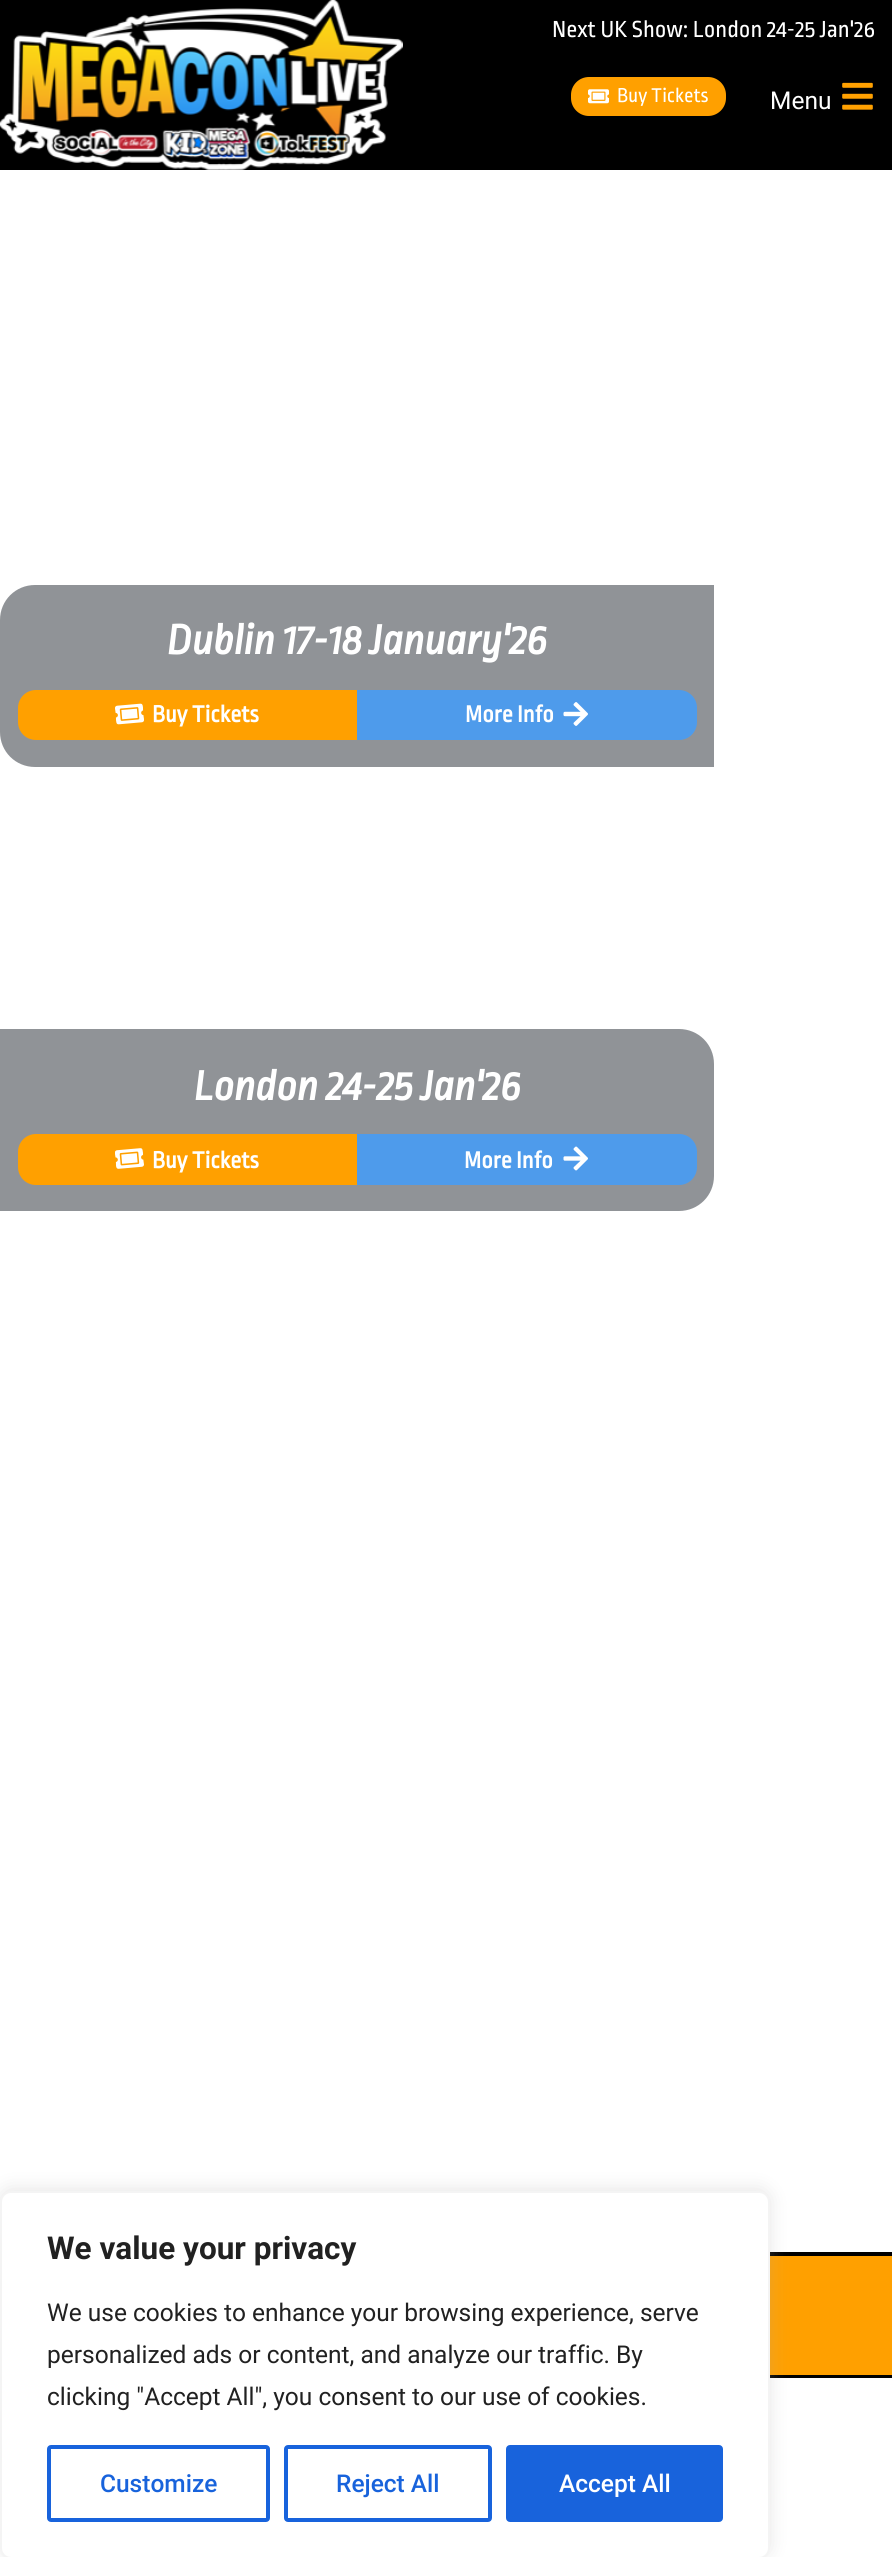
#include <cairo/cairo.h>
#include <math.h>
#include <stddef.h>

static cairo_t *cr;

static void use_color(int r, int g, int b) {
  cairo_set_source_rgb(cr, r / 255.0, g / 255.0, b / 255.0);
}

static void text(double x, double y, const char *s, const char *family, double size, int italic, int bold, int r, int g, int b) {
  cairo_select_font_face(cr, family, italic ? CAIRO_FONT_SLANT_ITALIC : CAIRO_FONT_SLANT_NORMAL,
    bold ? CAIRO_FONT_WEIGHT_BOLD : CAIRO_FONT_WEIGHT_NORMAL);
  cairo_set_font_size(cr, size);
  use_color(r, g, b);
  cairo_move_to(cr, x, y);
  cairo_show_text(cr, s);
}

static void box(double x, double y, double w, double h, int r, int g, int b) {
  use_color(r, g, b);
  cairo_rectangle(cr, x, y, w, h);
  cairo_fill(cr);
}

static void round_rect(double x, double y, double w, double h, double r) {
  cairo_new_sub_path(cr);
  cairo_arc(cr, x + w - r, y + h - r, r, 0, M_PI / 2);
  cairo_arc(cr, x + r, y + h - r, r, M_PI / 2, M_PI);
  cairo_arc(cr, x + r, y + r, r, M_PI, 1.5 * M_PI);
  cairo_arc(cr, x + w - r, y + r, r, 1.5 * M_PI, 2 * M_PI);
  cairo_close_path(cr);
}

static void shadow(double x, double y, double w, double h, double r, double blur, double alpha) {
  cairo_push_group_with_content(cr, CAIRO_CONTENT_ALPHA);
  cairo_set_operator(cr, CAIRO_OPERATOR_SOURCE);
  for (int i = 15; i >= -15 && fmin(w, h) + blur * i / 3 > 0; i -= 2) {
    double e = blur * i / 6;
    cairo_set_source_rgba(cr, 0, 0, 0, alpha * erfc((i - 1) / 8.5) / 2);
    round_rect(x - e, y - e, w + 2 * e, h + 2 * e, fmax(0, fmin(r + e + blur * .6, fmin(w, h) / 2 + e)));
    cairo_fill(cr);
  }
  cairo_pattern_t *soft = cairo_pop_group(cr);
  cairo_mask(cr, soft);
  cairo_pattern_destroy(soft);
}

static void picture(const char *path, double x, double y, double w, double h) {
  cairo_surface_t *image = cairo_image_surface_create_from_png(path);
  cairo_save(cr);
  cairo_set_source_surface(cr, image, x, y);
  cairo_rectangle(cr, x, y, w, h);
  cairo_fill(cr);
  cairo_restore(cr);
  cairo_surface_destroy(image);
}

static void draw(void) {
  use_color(255, 255, 255);
  cairo_paint(cr);
  box(0, 0, 892, 170, 0, 0, 0);
  picture("img_01.png", 0, 0, 403, 170);
  use_color(255, 160, 0);
  round_rect(571, 77, 155, 39, 18);
  cairo_fill(cr);
  picture("img_02.png", 588, 89, 21, 15);
  picture("img_03.png", 842, 82, 31, 28);
  use_color(144, 147, 151);
  cairo_new_path(cr);
  cairo_move_to(cr, 35, 585);
  cairo_line_to(cr, 714, 585);
  cairo_line_to(cr, 714, 767);
  cairo_line_to(cr, 35, 767);
  cairo_curve_to(cr, 15.5, 767, 0, 751.5, 0, 732);
  cairo_line_to(cr, 0, 620);
  cairo_curve_to(cr, 0, 600.5, 15.5, 585, 35, 585);
  cairo_close_path(cr);
  cairo_fill(cr);
  use_color(255, 160, 0);
  cairo_new_path(cr);
  cairo_move_to(cr, 36, 690);
  cairo_line_to(cr, 357, 690);
  cairo_line_to(cr, 357, 740);
  cairo_line_to(cr, 36, 740);
  cairo_curve_to(cr, 26, 740, 18, 732, 18, 722);
  cairo_line_to(cr, 18, 708);
  cairo_curve_to(cr, 18, 698, 26, 690, 36, 690);
  cairo_close_path(cr);
  cairo_fill(cr);
  picture("img_04.png", 115, 703, 29, 22);
  use_color(78, 155, 235);
  cairo_new_path(cr);
  cairo_move_to(cr, 357, 690);
  cairo_line_to(cr, 679, 690);
  cairo_curve_to(cr, 689, 690, 697, 698, 697, 708);
  cairo_line_to(cr, 697, 722);
  cairo_curve_to(cr, 697, 732, 689, 740, 679, 740);
  cairo_line_to(cr, 357, 740);
  cairo_close_path(cr);
  cairo_fill(cr);
  picture("img_05.png", 563, 702, 25, 24);
  use_color(144, 147, 151);
  cairo_new_path(cr);
  cairo_move_to(cr, 0, 1029);
  cairo_line_to(cr, 679, 1029);
  cairo_curve_to(cr, 698.5, 1029, 714, 1044.5, 714, 1064);
  cairo_line_to(cr, 714, 1176);
  cairo_curve_to(cr, 714, 1195.5, 698.5, 1211, 679, 1211);
  cairo_line_to(cr, 0, 1211);
  cairo_close_path(cr);
  cairo_fill(cr);
  use_color(255, 160, 0);
  cairo_new_path(cr);
  cairo_move_to(cr, 36, 1134);
  cairo_line_to(cr, 357, 1134);
  cairo_line_to(cr, 357, 1185);
  cairo_line_to(cr, 36, 1185);
  cairo_curve_to(cr, 26, 1185, 18, 1177, 18, 1167);
  cairo_line_to(cr, 18, 1152);
  cairo_curve_to(cr, 18, 1142, 26, 1134, 36, 1134);
  cairo_close_path(cr);
  cairo_fill(cr);
  picture("img_06.png", 115, 1148, 29, 21);
  use_color(78, 155, 235);
  cairo_new_path(cr);
  cairo_move_to(cr, 357, 1134);
  cairo_line_to(cr, 679, 1134);
  cairo_curve_to(cr, 689, 1134, 697, 1142, 697, 1152);
  cairo_line_to(cr, 697, 1167);
  cairo_curve_to(cr, 697, 1177, 689, 1185, 679, 1185);
  cairo_line_to(cr, 357, 1185);
  cairo_close_path(cr);
  cairo_fill(cr);
  picture("img_07.png", 563, 1146, 25, 25);
  box(770, 2256, 122, 119, 255, 160, 0);
  box(770, 2252, 122, 4, 0, 0, 0);
  box(770, 2375, 122, 3, 0, 0, 0);
  use_color(172, 171, 171);
  shadow(0, 2189, 770, 368, 11, 9, 0.3);
  use_color(255, 255, 255);
  round_rect(1, 2192, 768, 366, 10);
  cairo_fill_preserve(cr);
  use_color(244, 244, 244);
  cairo_stroke(cr);
  round_rect(49, 2447, 219, 73, 2);
  use_color(24, 99, 220);
  cairo_set_line_width(cr, 4);
  cairo_stroke(cr);
  round_rect(286, 2447, 204, 73, 2);
  cairo_stroke(cr);
  round_rect(508, 2447, 213, 73, 2);
  cairo_fill_preserve(cr);
  cairo_stroke(cr);
  text(552, 37, "Next UK Show: London 24-25 Jan'26", "Ropa Sans", 24.5, 0, 0, 255, 255, 255);
  text(617, 102, "Buy Tickets", "Ropa Sans", 21, 0, 0, 255, 255, 255);
  text(770, 109, "Menu", "Roboto", 24.5, 0, 0, 255, 255, 255);
  text(167, 654, "Dublin 17-18 January'26", "Ropa Sans", 43.75, 1, 1, 255, 255, 255);
  text(152, 722, "Buy Tickets", "Ropa Sans", 24.5, 0, 1, 255, 255, 255);
  text(465, 722, "More Info", "Ropa Sans", 24.5, 0, 1, 255, 255, 255);
  text(194, 1100, "London 24-25 Jan'26", "Ropa Sans", 43.75, 1, 1, 255, 255, 255);
  text(152, 1168, "Buy Tickets", "Ropa Sans", 24.5, 0, 1, 255, 255, 255);
  text(464, 1168, "More Info", "Ropa Sans", 24.5, 0, 1, 255, 255, 255);
  text(47, 2259, "We value your privacy", "Roboto", 31.5, 0, 1, 33, 33, 33);
  text(47, 2321, "We use cookies to enhance your browsing experience, serve", "Roboto", 24.5, 0, 0, 33, 33, 33);
  text(47, 2363, "personalized ads or content, and analyze our traffic. By", "Roboto", 24.5, 0, 0, 33, 33, 33);
  text(47, 2405, "clicking \"Accept All\", you consent to our use of cookies.", "Roboto", 24.5, 0, 0, 33, 33, 33);
  text(100, 2492, "Customize", "Roboto Medium", 24.5, 0, 0, 24, 99, 220);
  text(336, 2492, "Reject All", "Roboto Medium", 24.5, 0, 0, 24, 99, 220);
  text(559, 2492, "Accept All", "Roboto Medium", 24.5, 0, 0, 255, 255, 255);
}

int main(void) {
  cairo_surface_t *surface = cairo_image_surface_create(CAIRO_FORMAT_RGB24, 892, 2557);
  cr = cairo_create(surface);
  cairo_font_options_t *options = cairo_font_options_create();
  cairo_font_options_set_hint_metrics(options, CAIRO_HINT_METRICS_OFF);
  cairo_font_options_set_hint_style(options, CAIRO_HINT_STYLE_NONE);
  cairo_set_font_options(cr, options);
  cairo_set_miter_limit(cr, 4);
  draw();
  cairo_surface_write_to_png(surface, "out.png");
  cairo_font_options_destroy(options);
  cairo_destroy(cr);
  cairo_surface_destroy(surface);
  return 0;
}
